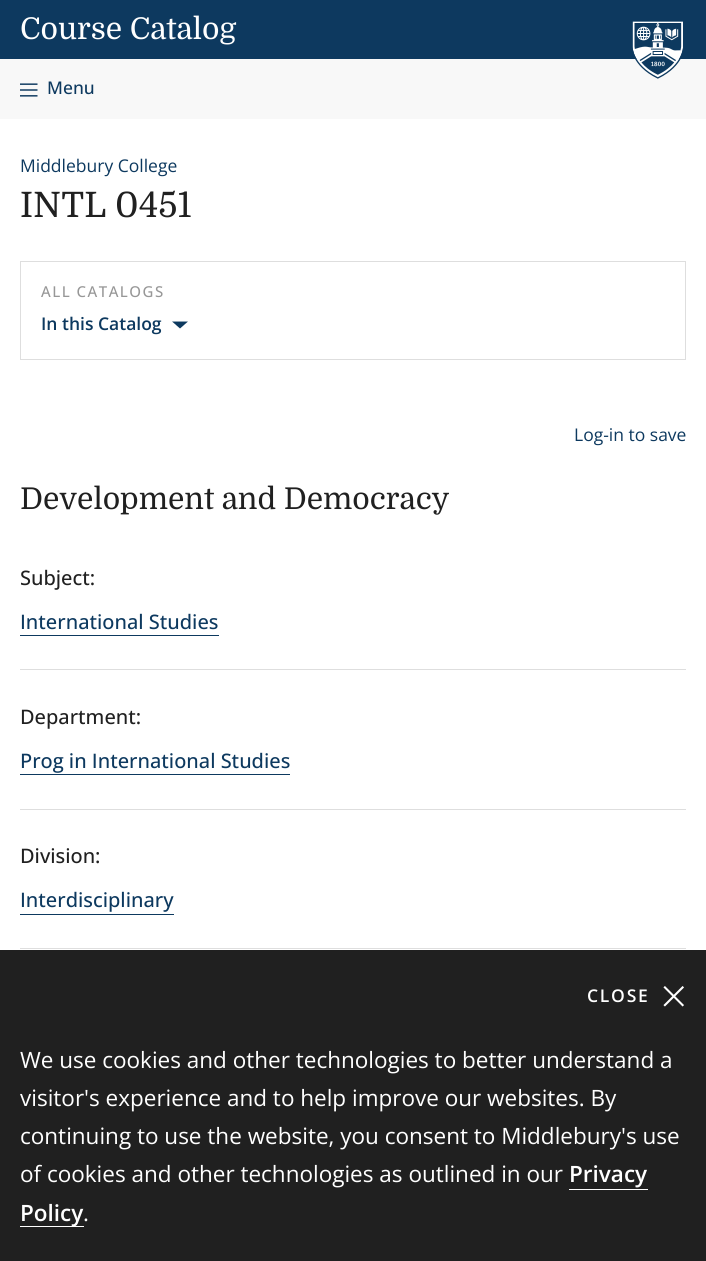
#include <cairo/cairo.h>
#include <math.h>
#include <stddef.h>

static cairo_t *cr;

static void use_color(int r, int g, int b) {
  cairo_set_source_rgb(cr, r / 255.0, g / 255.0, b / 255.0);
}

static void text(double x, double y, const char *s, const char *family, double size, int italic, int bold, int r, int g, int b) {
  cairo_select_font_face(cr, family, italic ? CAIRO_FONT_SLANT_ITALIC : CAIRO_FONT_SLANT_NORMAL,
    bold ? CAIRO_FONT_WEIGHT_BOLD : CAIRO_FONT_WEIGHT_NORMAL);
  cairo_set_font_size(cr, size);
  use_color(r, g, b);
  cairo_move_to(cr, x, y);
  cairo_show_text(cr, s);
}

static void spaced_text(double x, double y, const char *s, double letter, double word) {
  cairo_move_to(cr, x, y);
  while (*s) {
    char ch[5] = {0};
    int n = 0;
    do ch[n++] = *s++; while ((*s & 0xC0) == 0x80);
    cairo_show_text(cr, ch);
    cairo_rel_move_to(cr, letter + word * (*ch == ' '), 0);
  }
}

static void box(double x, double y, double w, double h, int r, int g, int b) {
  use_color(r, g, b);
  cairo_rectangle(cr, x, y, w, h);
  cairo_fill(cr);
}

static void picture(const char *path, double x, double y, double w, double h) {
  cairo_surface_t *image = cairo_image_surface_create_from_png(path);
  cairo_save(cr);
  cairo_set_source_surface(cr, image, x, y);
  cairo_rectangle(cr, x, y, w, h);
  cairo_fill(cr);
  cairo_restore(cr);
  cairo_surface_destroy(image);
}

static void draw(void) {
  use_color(255, 255, 255);
  cairo_paint(cr);
  box(0, 0, 706, 59, 13, 57, 95);
  box(0, 59, 706, 60, 248, 248, 248);
  picture("img_01.png", 632, 21, 51, 58);
  picture("img_02.png", 20, 83, 18, 14);
  cairo_rectangle(cr, 20.5, 261.5, 665, 98);
  use_color(222, 222, 222);
  cairo_set_line_width(cr, 1);
  cairo_stroke(cr);
  use_color(13, 57, 95);
  cairo_set_fill_rule(cr, CAIRO_FILL_RULE_EVEN_ODD);
  cairo_new_path(cr);
  cairo_move_to(cr, 188, 321.5);
  cairo_line_to(cr, 180, 328.5);
  cairo_line_to(cr, 172, 321.5);
  cairo_close_path(cr);
  cairo_fill(cr);
  box(20, 669, 666, 1, 222, 222, 222);
  box(20, 635, 199, 1, 13, 57, 95);
  box(20, 809, 666, 1, 222, 222, 222);
  box(20, 774, 270, 1, 13, 57, 95);
  box(20, 948, 666, 1, 222, 222, 222);
  box(20, 914, 154, 1, 13, 57, 95);
  box(0, 950, 706, 311, 32, 32, 32);
  picture("img_03.png", 663, 986, 21, 21);
  box(569, 1189, 79, 1, 255, 255, 255);
  box(20, 1226, 64, 1, 255, 255, 255);
  text(20, 39, "Course Catalog", "Domine", 30, 0, 0, 255, 255, 255);
  text(47, 94, "Menu", "Open Sans Medium", 17.5, 0, 0, 13, 57, 95);
  text(20, 172, "Middlebury College", "Open Sans", 17.5, 0, 0, 13, 57, 95);
  text(20, 217, "INTL 0451", "Domine", 35, 0, 0, 32, 32, 32);
  cairo_select_font_face(cr, "Open Sans Medium", CAIRO_FONT_SLANT_NORMAL, CAIRO_FONT_WEIGHT_NORMAL);
  cairo_set_font_size(cr, 15);
  use_color(151, 151, 151);
  spaced_text(41, 297, "ALL CATALOGS", 1.5, 0);
  text(41, 330, "In this Catalog", "Open Sans SemiBold", 17.5, 0, 0, 13, 57, 95);
  text(574, 441, "Log-in to save", "Open Sans", 17.5, 0, 0, 13, 57, 95);
  text(20, 509, "Development and Democracy", "Domine", 30, 0, 0, 32, 32, 32);
  text(20, 585, "Subject:", "Open Sans Medium", 20, 0, 0, 32, 32, 32);
  text(20, 629, "International Studies", "Open Sans Medium", 20, 0, 0, 13, 57, 95);
  text(20, 724, "Department:", "Open Sans Medium", 20, 0, 0, 32, 32, 32);
  text(20, 768, "Prog in International Studies", "Open Sans Medium", 20, 0, 0, 13, 57, 95);
  text(20, 863, "Division:", "Open Sans Medium", 20, 0, 0, 32, 32, 32);
  text(20, 907, "Interdisciplinary", "Open Sans Medium", 20, 0, 0, 13, 57, 95);
  cairo_select_font_face(cr, "Open Sans SemiBold", CAIRO_FONT_SLANT_NORMAL, CAIRO_FONT_WEIGHT_NORMAL);
  cairo_set_font_size(cr, 17.5);
  use_color(255, 255, 255);
  spaced_text(587, 1002, "CLOSE", 1.75, 0);
  text(20, 1068, "We use cookies and other technologies to better understand a", "Open Sans", 22.5, 0, 0, 255, 255, 255);
  text(20, 1106, "visitor's experience and to help improve our websites. By", "Open Sans", 22.5, 0, 0, 255, 255, 255);
  text(20, 1144, "continuing to use the website, you consent to Middlebury's use", "Open Sans", 22.5, 0, 0, 255, 255, 255);
  text(20, 1182, "of cookies and other technologies as outlined in our", "Open Sans", 22.5, 0, 0, 255, 255, 255);
  text(569, 1182, "Privacy", "Open Sans SemiBold", 22.5, 0, 0, 255, 255, 255);
  text(20, 1221, "Policy", "Open Sans SemiBold", 22.5, 0, 0, 255, 255, 255);
  text(83, 1221, ".", "Open Sans", 22.5, 0, 0, 255, 255, 255);
}

int main(void) {
  cairo_surface_t *surface = cairo_image_surface_create(CAIRO_FORMAT_RGB24, 706, 1261);
  cr = cairo_create(surface);
  cairo_font_options_t *options = cairo_font_options_create();
  cairo_font_options_set_hint_metrics(options, CAIRO_HINT_METRICS_OFF);
  cairo_font_options_set_hint_style(options, CAIRO_HINT_STYLE_NONE);
  cairo_set_font_options(cr, options);
  cairo_set_miter_limit(cr, 4);
  draw();
  cairo_surface_write_to_png(surface, "out.png");
  cairo_font_options_destroy(options);
  cairo_destroy(cr);
  cairo_surface_destroy(surface);
  return 0;
}
